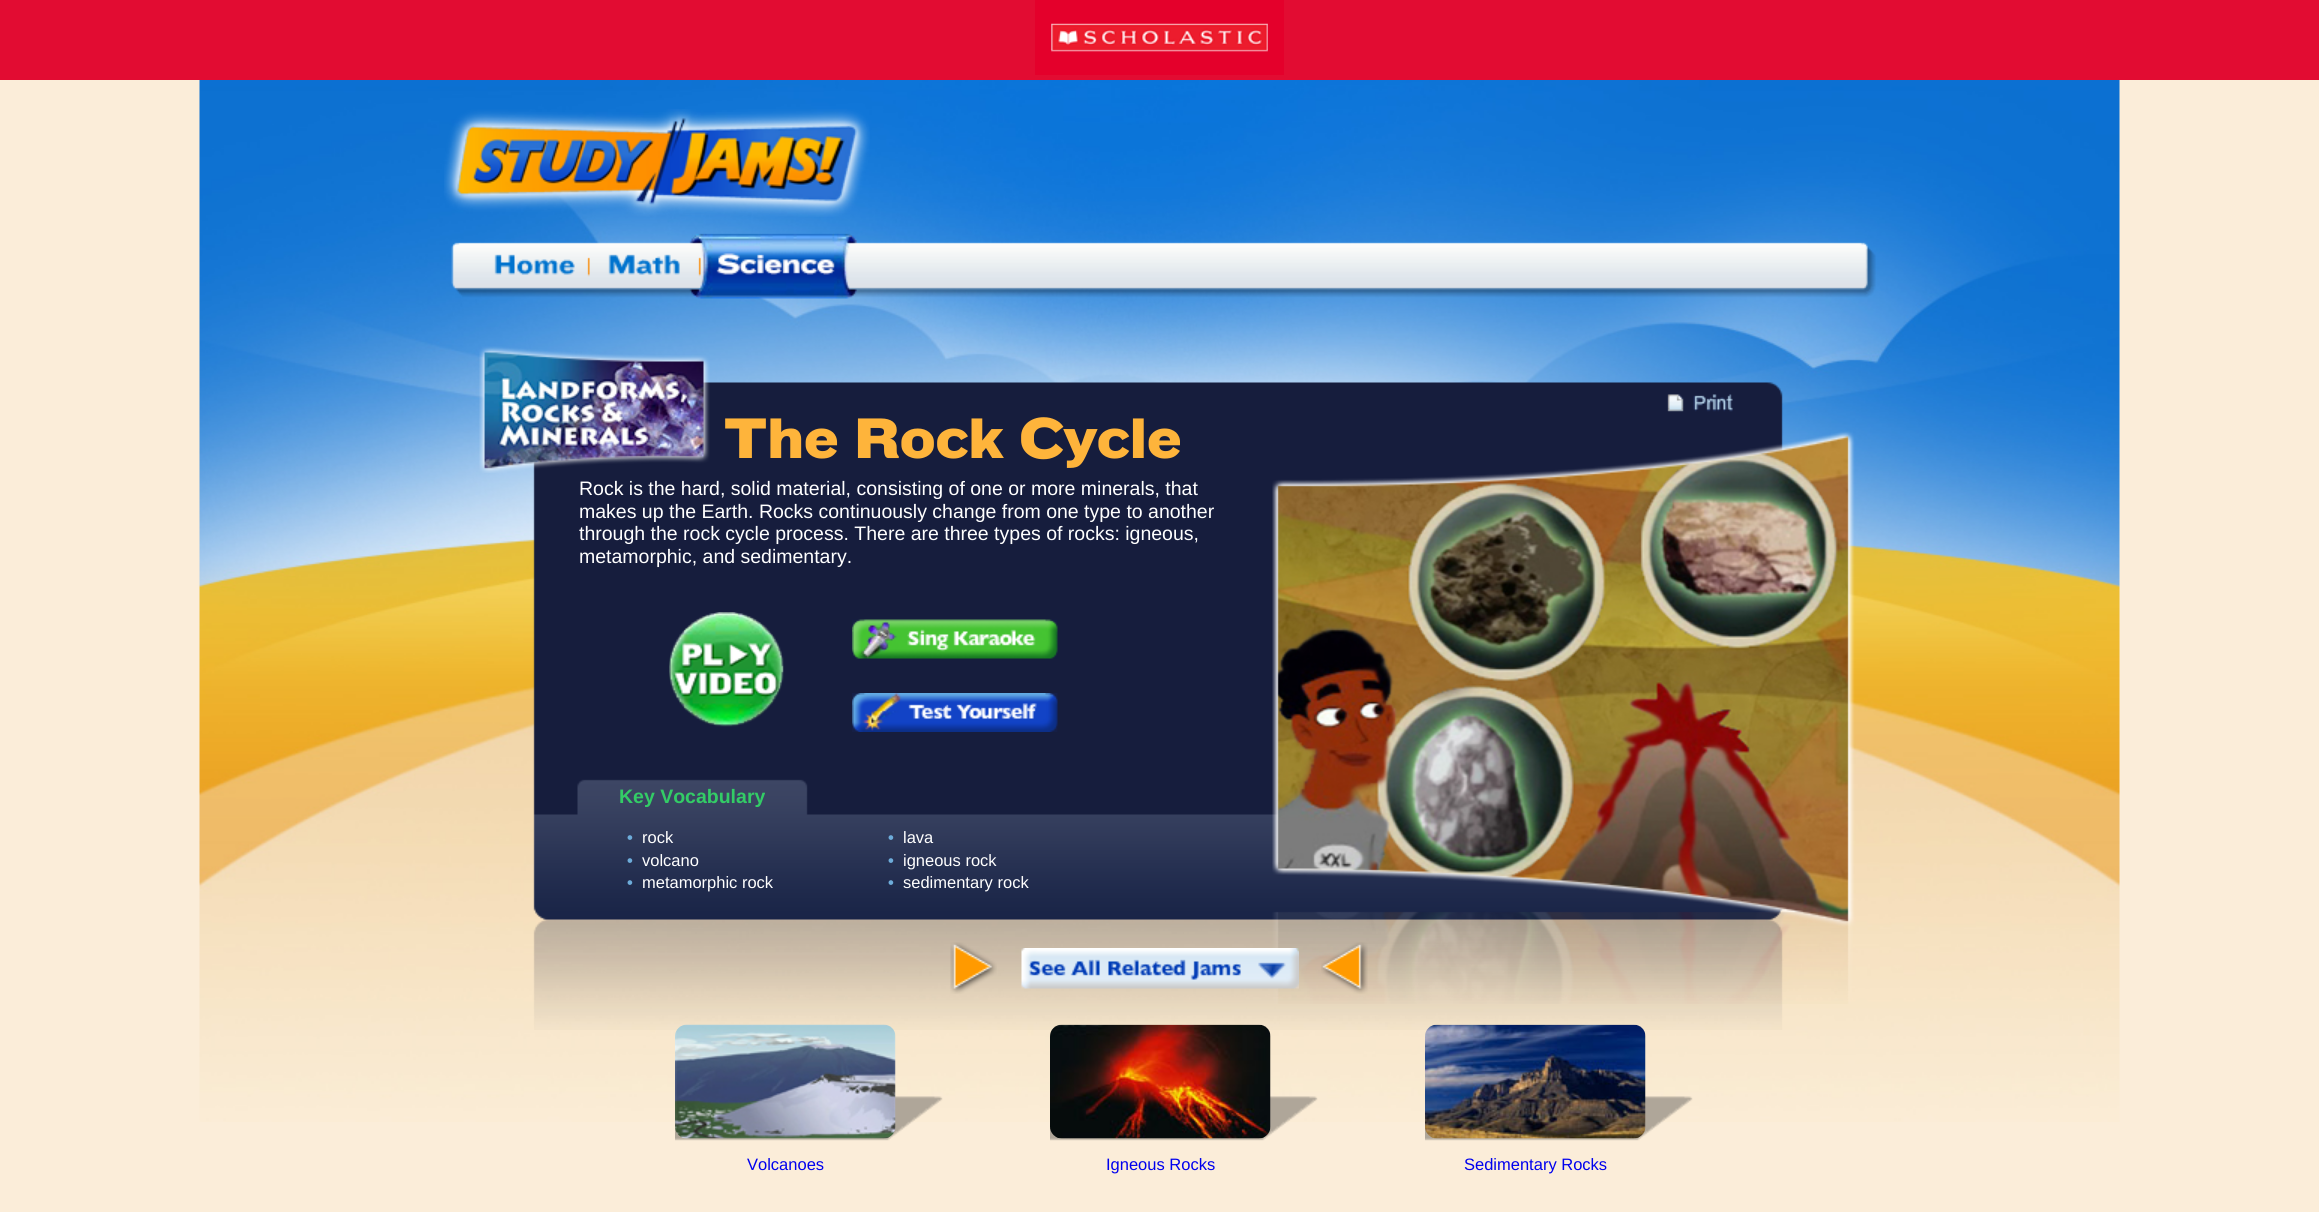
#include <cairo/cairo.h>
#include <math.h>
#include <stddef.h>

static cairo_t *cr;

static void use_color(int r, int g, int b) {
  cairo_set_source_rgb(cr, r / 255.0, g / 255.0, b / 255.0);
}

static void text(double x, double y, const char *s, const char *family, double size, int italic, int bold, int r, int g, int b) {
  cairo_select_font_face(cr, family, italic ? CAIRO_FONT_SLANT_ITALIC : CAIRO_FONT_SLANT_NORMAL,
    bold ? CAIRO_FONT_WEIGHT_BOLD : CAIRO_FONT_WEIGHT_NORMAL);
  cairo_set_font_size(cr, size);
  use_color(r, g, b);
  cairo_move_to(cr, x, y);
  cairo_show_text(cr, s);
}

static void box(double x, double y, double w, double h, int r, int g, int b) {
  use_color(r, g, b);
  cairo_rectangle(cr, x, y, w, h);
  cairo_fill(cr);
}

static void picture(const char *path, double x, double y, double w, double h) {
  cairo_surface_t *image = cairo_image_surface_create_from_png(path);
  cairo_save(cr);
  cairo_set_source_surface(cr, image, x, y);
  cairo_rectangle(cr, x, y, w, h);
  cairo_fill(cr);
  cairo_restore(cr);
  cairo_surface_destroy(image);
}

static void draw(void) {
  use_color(251, 237, 217);
  cairo_paint(cr);
  box(0, 0, 2319, 80, 226, 12, 50);
  picture("img_01.png", 1035, 0, 249, 75);
  picture("img_02.png", 199, 80, 1921, 1042);
  picture("img_03.png", 444, 109, 426, 108);
  picture("img_04.png", 451, 233, 1425, 66);
  picture("img_05.png", 533, 382, 1250, 648);
  picture("img_06.png", 479, 346, 231, 127);
  picture("img_07.png", 1667, 394, 66, 18);
  picture("img_08.png", 1272, 431, 583, 573);
  picture("img_09.png", 669, 612, 115, 115);
  picture("img_10.png", 852, 619, 206, 40);
  picture("img_11.png", 852, 693, 206, 39);
  picture("img_12.png", 950, 942, 47, 52);
  picture("img_13.png", 1021, 948, 278, 41);
  picture("img_14.png", 1321, 942, 47, 52);
  picture("img_15.png", 675, 1096, 268, 45);
  picture("img_16.png", 675, 1024, 221, 115);
  picture("img_17.png", 1050, 1096, 268, 45);
  picture("img_18.png", 1050, 1024, 221, 115);
  picture("img_19.png", 1425, 1096, 268, 45);
  picture("img_20.png", 1425, 1024, 221, 115);
  text(723, 458, "The Rock Cycle", "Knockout", 57, 0, 1, 254, 180, 59);
  text(579, 495, "Rock is the hard, solid material, consisting of one or more minerals, that", "Liberation Sans", 19.5, 0, 0, 255, 255, 255);
  text(579, 518, "makes up the Earth. Rocks continuously change from one type to another", "Liberation Sans", 19.5, 0, 0, 255, 255, 255);
  text(579, 540, "through the rock cycle process. There are three types of rocks: igneous,", "Liberation Sans", 19.5, 0, 0, 255, 255, 255);
  text(579, 563, "metamorphic, and sedimentary.", "Liberation Sans", 19.5, 0, 0, 255, 255, 255);
  text(619, 803, "Key Vocabulary", "Liberation Sans", 19.5, 0, 1, 51, 204, 102);
  text(627, 843, "•", "Liberation Sans", 16.5, 0, 1, 109, 172, 218);
  text(642, 843, "rock", "Liberation Sans", 16.5, 0, 0, 255, 255, 255);
  text(888, 843, "•", "Liberation Sans", 16.5, 0, 1, 109, 172, 218);
  text(903, 843, "lava", "Liberation Sans", 16.5, 0, 0, 255, 255, 255);
  text(627, 866, "•", "Liberation Sans", 16.5, 0, 1, 109, 172, 218);
  text(642, 866, "volcano", "Liberation Sans", 16.5, 0, 0, 255, 255, 255);
  text(888, 866, "•", "Liberation Sans", 16.5, 0, 1, 109, 172, 218);
  text(903, 866, "igneous rock", "Liberation Sans", 16.5, 0, 0, 255, 255, 255);
  text(627, 888, "•", "Liberation Sans", 16.5, 0, 1, 109, 172, 218);
  text(642, 888, "metamorphic rock", "Liberation Sans", 16.5, 0, 0, 255, 255, 255);
  text(888, 888, "•", "Liberation Sans", 16.5, 0, 1, 109, 172, 218);
  text(903, 888, "sedimentary rock", "Liberation Sans", 16.5, 0, 0, 255, 255, 255);
  text(747, 1170, "Volcanoes", "Liberation Sans", 16.5, 0, 0, 0, 0, 238);
  text(1106, 1170, "Igneous Rocks", "Liberation Sans", 16.5, 0, 0, 0, 0, 238);
  text(1464, 1170, "Sedimentary Rocks", "Liberation Sans", 16.5, 0, 0, 0, 0, 238);
}

int main(void) {
  cairo_surface_t *surface = cairo_image_surface_create(CAIRO_FORMAT_RGB24, 2319, 1212);
  cr = cairo_create(surface);
  cairo_font_options_t *options = cairo_font_options_create();
  cairo_font_options_set_hint_metrics(options, CAIRO_HINT_METRICS_OFF);
  cairo_font_options_set_hint_style(options, CAIRO_HINT_STYLE_NONE);
  cairo_set_font_options(cr, options);
  cairo_set_miter_limit(cr, 4);
  draw();
  cairo_surface_write_to_png(surface, "out.png");
  cairo_font_options_destroy(options);
  cairo_destroy(cr);
  cairo_surface_destroy(surface);
  return 0;
}
